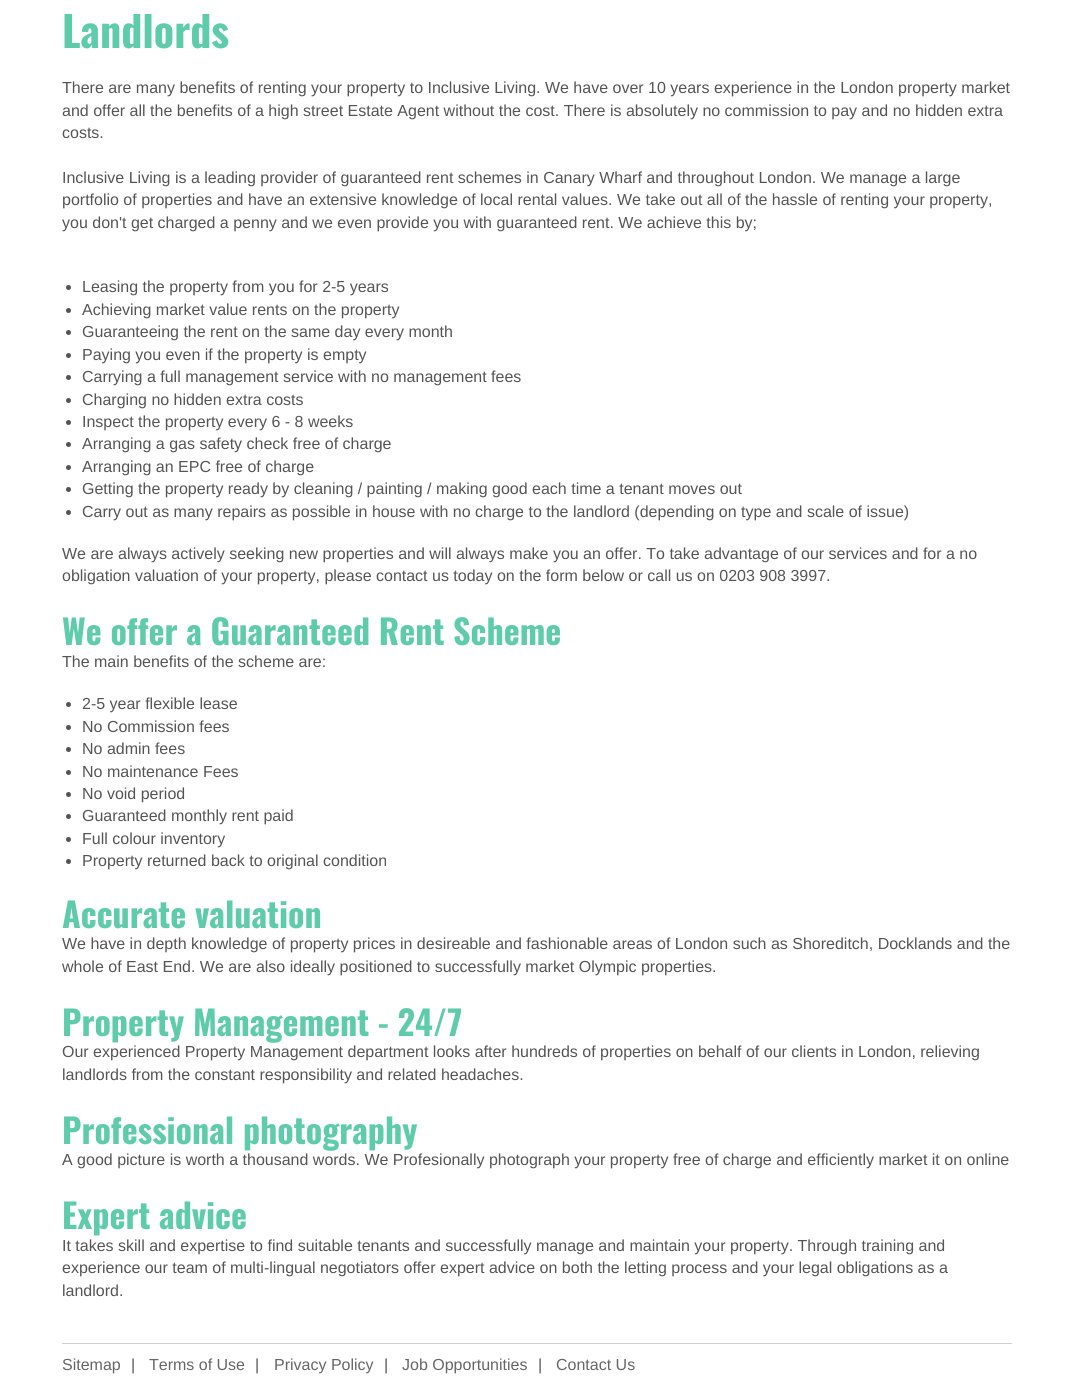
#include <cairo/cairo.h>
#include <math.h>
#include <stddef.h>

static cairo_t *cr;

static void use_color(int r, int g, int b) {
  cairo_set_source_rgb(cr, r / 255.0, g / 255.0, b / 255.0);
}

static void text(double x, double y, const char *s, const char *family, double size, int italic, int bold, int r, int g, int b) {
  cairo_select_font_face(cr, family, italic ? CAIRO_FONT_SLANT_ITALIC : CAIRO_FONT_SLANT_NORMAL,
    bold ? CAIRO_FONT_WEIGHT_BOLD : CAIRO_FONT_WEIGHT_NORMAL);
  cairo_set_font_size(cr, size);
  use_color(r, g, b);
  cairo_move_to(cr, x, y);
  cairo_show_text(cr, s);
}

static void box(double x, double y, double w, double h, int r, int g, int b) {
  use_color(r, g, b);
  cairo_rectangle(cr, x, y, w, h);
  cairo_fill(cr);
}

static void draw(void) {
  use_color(255, 255, 255);
  cairo_paint(cr);
  use_color(85, 85, 85);
  cairo_arc(cr, 68.5, 287.5, 2.5, 0, 2 * M_PI);
  cairo_fill(cr);
  cairo_arc(cr, 68.5, 310.5, 2.5, 0, 2 * M_PI);
  cairo_fill(cr);
  cairo_arc(cr, 68.5, 332.5, 2.5, 0, 2 * M_PI);
  cairo_fill(cr);
  cairo_arc(cr, 68.5, 355.5, 2.5, 0, 2 * M_PI);
  cairo_fill(cr);
  cairo_arc(cr, 68.5, 377.5, 2.5, 0, 2 * M_PI);
  cairo_fill(cr);
  cairo_arc(cr, 68.5, 400.5, 2.5, 0, 2 * M_PI);
  cairo_fill(cr);
  cairo_arc(cr, 68.5, 422.5, 2.5, 0, 2 * M_PI);
  cairo_fill(cr);
  cairo_arc(cr, 68.5, 444.5, 2.5, 0, 2 * M_PI);
  cairo_fill(cr);
  cairo_arc(cr, 68.5, 467.5, 2.5, 0, 2 * M_PI);
  cairo_fill(cr);
  cairo_arc(cr, 68.5, 489.5, 2.5, 0, 2 * M_PI);
  cairo_fill(cr);
  cairo_arc(cr, 68.5, 512.5, 2.5, 0, 2 * M_PI);
  cairo_fill(cr);
  cairo_arc(cr, 68.5, 704.5, 2.5, 0, 2 * M_PI);
  cairo_fill(cr);
  cairo_arc(cr, 68.5, 727.5, 2.5, 0, 2 * M_PI);
  cairo_fill(cr);
  cairo_arc(cr, 68.5, 749.5, 2.5, 0, 2 * M_PI);
  cairo_fill(cr);
  cairo_arc(cr, 68.5, 772.5, 2.5, 0, 2 * M_PI);
  cairo_fill(cr);
  cairo_arc(cr, 68.5, 794.5, 2.5, 0, 2 * M_PI);
  cairo_fill(cr);
  cairo_arc(cr, 68.5, 816.5, 2.5, 0, 2 * M_PI);
  cairo_fill(cr);
  cairo_arc(cr, 68.5, 839.5, 2.5, 0, 2 * M_PI);
  cairo_fill(cr);
  cairo_arc(cr, 68.5, 861.5, 2.5, 0, 2 * M_PI);
  cairo_fill(cr);
  box(62, 1343, 950, 1, 208, 208, 208);
  text(62, 48, "Landlords", "Oswald", 42, 0, 1, 94, 204, 171);
  text(62, 93, "There are many benefits of renting your property to Inclusive Living. We have over 10 years experience in the London property market", "Liberation Sans", 16, 0, 0, 85, 85, 85);
  text(62, 116, "and offer all the benefits of a high street Estate Agent without the cost. There is absolutely no commission to pay and no hidden extra", "Liberation Sans", 16, 0, 0, 85, 85, 85);
  text(62, 138, "costs.", "Liberation Sans", 16, 0, 0, 85, 85, 85);
  text(62, 183, "Inclusive Living is a leading provider of guaranteed rent schemes in Canary Wharf and throughout London. We manage a large", "Liberation Sans", 16, 0, 0, 85, 85, 85);
  text(62, 205, "portfolio of properties and have an extensive knowledge of local rental values. We take out all of the hassle of renting your property,", "Liberation Sans", 16, 0, 0, 85, 85, 85);
  text(62, 228, "you don't get charged a penny and we even provide you with guaranteed rent. We achieve this by;", "Liberation Sans", 16, 0, 0, 85, 85, 85);
  text(82, 292, "Leasing the property from you for 2-5 years", "Liberation Sans", 16, 0, 0, 85, 85, 85);
  text(82, 315, "Achieving market value rents on the property", "Liberation Sans", 16, 0, 0, 85, 85, 85);
  text(82, 337, "Guaranteeing the rent on the same day every month", "Liberation Sans", 16, 0, 0, 85, 85, 85);
  text(82, 360, "Paying you even if the property is empty", "Liberation Sans", 16, 0, 0, 85, 85, 85);
  text(82, 382, "Carrying a full management service with no management fees", "Liberation Sans", 16, 0, 0, 85, 85, 85);
  text(82, 405, "Charging no hidden extra costs", "Liberation Sans", 16, 0, 0, 85, 85, 85);
  text(82, 427, "Inspect the property every 6 - 8 weeks", "Liberation Sans", 16, 0, 0, 85, 85, 85);
  text(82, 449, "Arranging a gas safety check free of charge", "Liberation Sans", 16, 0, 0, 85, 85, 85);
  text(82, 472, "Arranging an EPC free of charge", "Liberation Sans", 16, 0, 0, 85, 85, 85);
  text(82, 494, "Getting the property ready by cleaning / painting / making good each time a tenant moves out", "Liberation Sans", 16, 0, 0, 85, 85, 85);
  text(82, 517, "Carry out as many repairs as possible in house with no charge to the landlord (depending on type and scale of issue)", "Liberation Sans", 16, 0, 0, 85, 85, 85);
  text(62, 559, "We are always actively seeking new properties and will always make you an offer. To take advantage of our services and for a no", "Liberation Sans", 16, 0, 0, 85, 85, 85);
  text(62, 581, "obligation valuation of your property, please contact us today on the form below or call us on 0203 908 3997.", "Liberation Sans", 16, 0, 0, 85, 85, 85);
  text(62, 645, "We offer a Guaranteed Rent Scheme", "Oswald", 34, 0, 1, 94, 204, 171);
  text(62, 667, "The main benefits of the scheme are:", "Liberation Sans", 16, 0, 0, 85, 85, 85);
  text(82, 709, "2-5 year flexible lease", "Liberation Sans", 16, 0, 0, 85, 85, 85);
  text(82, 732, "No Commission fees", "Liberation Sans", 16, 0, 0, 85, 85, 85);
  text(82, 754, "No admin fees", "Liberation Sans", 16, 0, 0, 85, 85, 85);
  text(82, 777, "No maintenance Fees", "Liberation Sans", 16, 0, 0, 85, 85, 85);
  text(82, 799, "No void period", "Liberation Sans", 16, 0, 0, 85, 85, 85);
  text(82, 821, "Guaranteed monthly rent paid", "Liberation Sans", 16, 0, 0, 85, 85, 85);
  text(82, 844, "Full colour inventory", "Liberation Sans", 16, 0, 0, 85, 85, 85);
  text(82, 866, "Property returned back to original condition", "Liberation Sans", 16, 0, 0, 85, 85, 85);
  text(62, 928, "Accurate valuation", "Oswald", 34, 0, 1, 94, 204, 171);
  text(62, 949, "We have in depth knowledge of property prices in desireable and fashionable areas of London such as Shoreditch, Docklands and the", "Liberation Sans", 16, 0, 0, 85, 85, 85);
  text(62, 972, "whole of East End. We are also ideally positioned to successfully market Olympic properties.", "Liberation Sans", 16, 0, 0, 85, 85, 85);
  text(62, 1036, "Property Management - 24/7", "Oswald", 34, 0, 1, 94, 204, 171);
  text(62, 1057, "Our experienced Property Management department looks after hundreds of properties on behalf of our clients in London, relieving", "Liberation Sans", 16, 0, 0, 85, 85, 85);
  text(62, 1080, "landlords from the constant responsibility and related headaches.", "Liberation Sans", 16, 0, 0, 85, 85, 85);
  text(62, 1144, "Professional photography", "Oswald", 34, 0, 1, 94, 204, 171);
  text(62, 1165, "A good picture is worth a thousand words. We Profesionally photograph your property free of charge and efficiently market it on online", "Liberation Sans", 16, 0, 0, 85, 85, 85);
  text(62, 1229, "Expert advice", "Oswald", 34, 0, 1, 94, 204, 171);
  text(62, 1251, "It takes skill and expertise to find suitable tenants and successfully manage and maintain your property. Through training and", "Liberation Sans", 16, 0, 0, 85, 85, 85);
  text(62, 1273, "experience our team of multi-lingual negotiators offer expert advice on both the letting process and your legal obligations as a", "Liberation Sans", 16, 0, 0, 85, 85, 85);
  text(62, 1296, "landlord.", "Liberation Sans", 16, 0, 0, 85, 85, 85);
  text(62, 1370, "Sitemap", "Liberation Sans", 16, 0, 0, 102, 102, 102);
  text(131, 1370, "|", "Liberation Sans", 16, 0, 0, 85, 85, 85);
  text(149, 1370, "Terms of Use", "Liberation Sans", 16, 0, 0, 102, 102, 102);
  text(255, 1370, "|", "Liberation Sans", 16, 0, 0, 85, 85, 85);
  text(274, 1370, "Privacy Policy", "Liberation Sans", 16, 0, 0, 102, 102, 102);
  text(384, 1370, "|", "Liberation Sans", 16, 0, 0, 85, 85, 85);
  text(402, 1370, "Job Opportunities", "Liberation Sans", 16, 0, 0, 102, 102, 102);
  text(538, 1370, "|", "Liberation Sans", 16, 0, 0, 85, 85, 85);
  text(556, 1370, "Contact Us", "Liberation Sans", 16, 0, 0, 102, 102, 102);
}

int main(void) {
  cairo_surface_t *surface = cairo_image_surface_create(CAIRO_FORMAT_RGB24, 1074, 1376);
  cr = cairo_create(surface);
  cairo_font_options_t *options = cairo_font_options_create();
  cairo_font_options_set_hint_metrics(options, CAIRO_HINT_METRICS_OFF);
  cairo_font_options_set_hint_style(options, CAIRO_HINT_STYLE_NONE);
  cairo_set_font_options(cr, options);
  cairo_set_miter_limit(cr, 4);
  draw();
  cairo_surface_write_to_png(surface, "out.png");
  cairo_font_options_destroy(options);
  cairo_destroy(cr);
  cairo_surface_destroy(surface);
  return 0;
}
